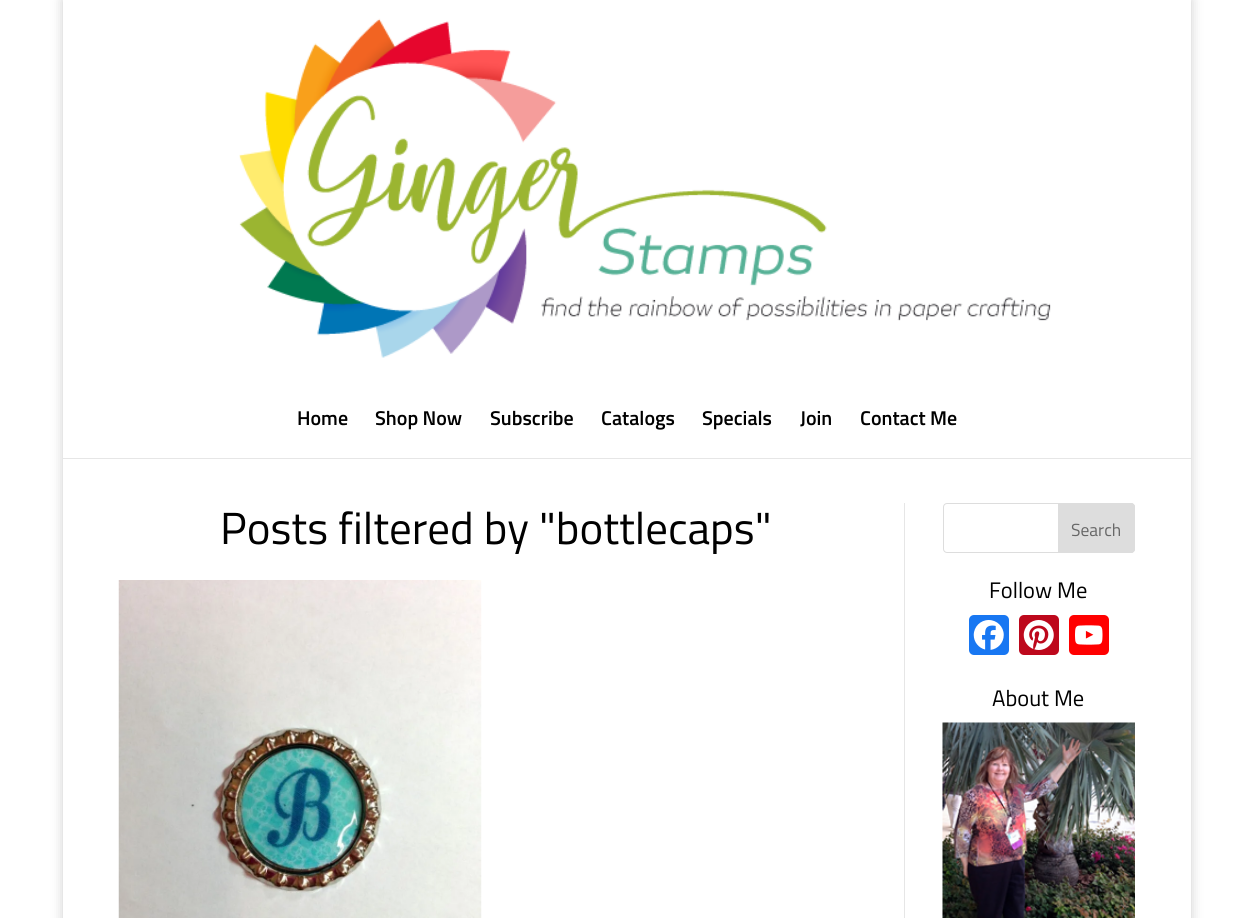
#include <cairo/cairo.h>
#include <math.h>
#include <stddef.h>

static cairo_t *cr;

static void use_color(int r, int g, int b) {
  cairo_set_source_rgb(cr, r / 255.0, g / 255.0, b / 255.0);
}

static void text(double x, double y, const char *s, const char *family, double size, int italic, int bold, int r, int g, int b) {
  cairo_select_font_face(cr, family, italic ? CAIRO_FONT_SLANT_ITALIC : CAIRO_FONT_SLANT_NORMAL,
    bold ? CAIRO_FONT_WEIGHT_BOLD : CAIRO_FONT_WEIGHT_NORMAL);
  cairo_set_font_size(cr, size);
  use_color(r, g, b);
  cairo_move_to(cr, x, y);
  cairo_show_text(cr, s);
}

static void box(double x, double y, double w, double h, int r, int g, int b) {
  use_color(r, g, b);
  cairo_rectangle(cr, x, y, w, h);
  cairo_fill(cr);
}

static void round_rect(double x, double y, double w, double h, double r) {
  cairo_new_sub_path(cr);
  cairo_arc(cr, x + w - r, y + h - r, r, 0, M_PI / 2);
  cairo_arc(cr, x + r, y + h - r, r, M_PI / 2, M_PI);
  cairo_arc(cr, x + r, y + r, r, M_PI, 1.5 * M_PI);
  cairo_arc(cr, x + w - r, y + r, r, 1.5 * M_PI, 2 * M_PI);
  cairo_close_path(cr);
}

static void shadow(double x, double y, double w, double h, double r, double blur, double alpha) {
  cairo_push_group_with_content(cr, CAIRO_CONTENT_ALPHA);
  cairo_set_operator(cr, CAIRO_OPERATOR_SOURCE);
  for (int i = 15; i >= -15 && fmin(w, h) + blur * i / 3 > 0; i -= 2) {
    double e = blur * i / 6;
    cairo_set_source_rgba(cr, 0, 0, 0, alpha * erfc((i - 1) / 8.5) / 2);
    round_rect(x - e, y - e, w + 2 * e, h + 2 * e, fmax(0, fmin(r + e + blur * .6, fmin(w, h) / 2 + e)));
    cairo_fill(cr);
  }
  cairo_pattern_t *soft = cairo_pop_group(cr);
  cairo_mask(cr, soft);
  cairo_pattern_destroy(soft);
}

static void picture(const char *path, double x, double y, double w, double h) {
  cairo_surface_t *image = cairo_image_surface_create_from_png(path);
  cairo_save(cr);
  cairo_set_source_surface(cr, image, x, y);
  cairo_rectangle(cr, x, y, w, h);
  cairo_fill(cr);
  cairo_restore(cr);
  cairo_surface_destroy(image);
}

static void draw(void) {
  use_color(255, 255, 255);
  cairo_paint(cr);
  cairo_save(cr);
  cairo_set_fill_rule(cr, CAIRO_FILL_RULE_EVEN_ODD);
  cairo_new_path(cr);
  cairo_move_to(cr, 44, 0);
  cairo_line_to(cr, 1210, 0);
  cairo_line_to(cr, 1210, 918);
  cairo_line_to(cr, 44, 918);
  cairo_close_path(cr);
  cairo_move_to(cr, 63, 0);
  cairo_line_to(cr, 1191, 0);
  cairo_line_to(cr, 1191, 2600);
  cairo_line_to(cr, 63, 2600);
  cairo_close_path(cr);
  cairo_clip(cr);
  use_color(0, 0, 0);
  shadow(63, 0, 1128, 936, 0, 6, 0.2);
  cairo_restore(cr);
  box(63, 458, 1128, 1, 230, 230, 230);
  picture("img_01.png", 239, 18, 812, 340);
  picture("img_02.png", 118, 580, 364, 338);
  box(904, 503, 1, 415, 230, 230, 230);
  round_rect(943.5, 503.5, 191, 49, 3.5);
  use_color(221, 221, 221);
  cairo_set_line_width(cr, 1);
  cairo_stroke(cr);
  cairo_new_path(cr);
  cairo_move_to(cr, 1058.5, 503.5);
  cairo_line_to(cr, 1131, 503.5);
  cairo_curve_to(cr, 1133, 503.5, 1134.5, 505, 1134.5, 507);
  cairo_line_to(cr, 1134.5, 549);
  cairo_curve_to(cr, 1134.5, 551, 1133, 552.5, 1131, 552.5);
  cairo_line_to(cr, 1058.5, 552.5);
  cairo_close_path(cr);
  cairo_fill_preserve(cr);
  cairo_stroke(cr);
  use_color(24, 119, 242);
  round_rect(969, 615, 40, 40, 5);
  cairo_fill(cr);
  picture("img_03.png", 973, 620, 31, 30);
  use_color(189, 8, 28);
  round_rect(1019, 615, 40, 40, 5);
  cairo_fill(cr);
  picture("img_04.png", 1023, 620, 31, 30);
  use_color(255, 0, 0);
  round_rect(1069, 615, 40, 40, 5);
  cairo_fill(cr);
  picture("img_05.png", 1075, 625, 28, 20);
  picture("img_06.png", 942, 722, 193, 196);
  text(297, 425, "Home", "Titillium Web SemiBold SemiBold", 20, 0, 0, 0, 0, 0);
  text(375, 425, "Shop Now", "Titillium Web SemiBold SemiBold", 20, 0, 0, 0, 0, 0);
  text(490, 425, "Subscribe", "Titillium Web SemiBold SemiBold", 20, 0, 0, 0, 0, 0);
  text(601, 425, "Catalogs", "Titillium Web SemiBold SemiBold", 20, 0, 0, 0, 0, 0);
  text(702, 425, "Specials", "Titillium Web SemiBold SemiBold", 20, 0, 0, 0, 0, 0);
  text(800, 425, "Join", "Titillium Web SemiBold SemiBold", 20, 0, 0, 0, 0, 0);
  text(860, 425, "Contact Me", "Titillium Web SemiBold SemiBold", 20, 0, 0, 0, 0, 0);
  text(220, 544, "Posts filtered by \"bottlecaps\"", "Titillium Web", 45, 0, 0, 0, 0, 0);
  text(1071, 536, "Search", "Titillium Web", 17.5, 0, 0, 102, 102, 102);
  text(989, 598, "Follow Me", "Titillium Web", 22.5, 0, 0, 0, 0, 0);
  text(992, 706, "About Me", "Titillium Web", 22.5, 0, 0, 0, 0, 0);
}

int main(void) {
  cairo_surface_t *surface = cairo_image_surface_create(CAIRO_FORMAT_RGB24, 1253, 918);
  cr = cairo_create(surface);
  cairo_font_options_t *options = cairo_font_options_create();
  cairo_font_options_set_hint_metrics(options, CAIRO_HINT_METRICS_OFF);
  cairo_font_options_set_hint_style(options, CAIRO_HINT_STYLE_NONE);
  cairo_set_font_options(cr, options);
  cairo_set_miter_limit(cr, 4);
  draw();
  cairo_surface_write_to_png(surface, "out.png");
  cairo_font_options_destroy(options);
  cairo_destroy(cr);
  cairo_surface_destroy(surface);
  return 0;
}
